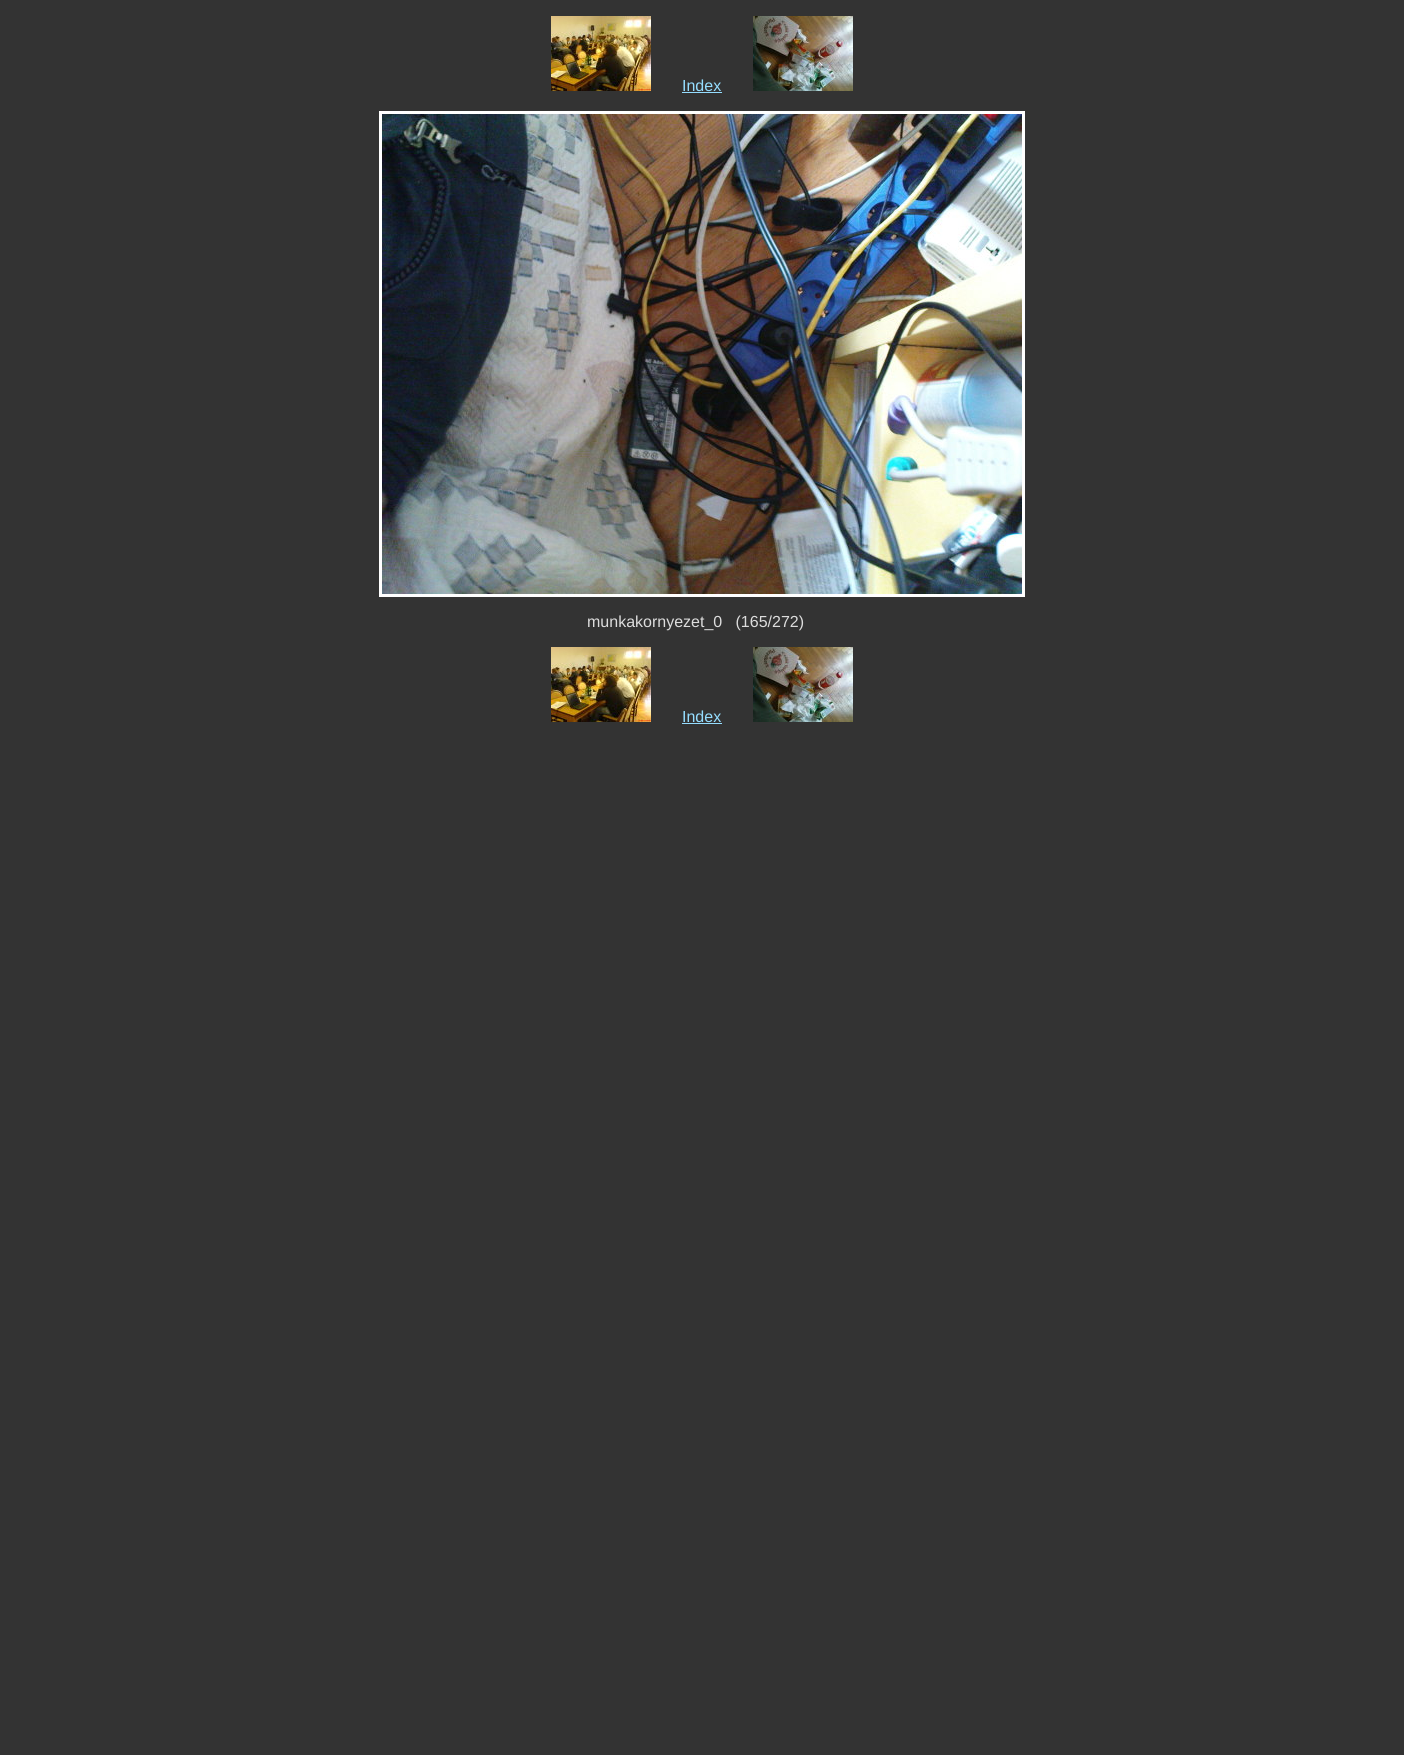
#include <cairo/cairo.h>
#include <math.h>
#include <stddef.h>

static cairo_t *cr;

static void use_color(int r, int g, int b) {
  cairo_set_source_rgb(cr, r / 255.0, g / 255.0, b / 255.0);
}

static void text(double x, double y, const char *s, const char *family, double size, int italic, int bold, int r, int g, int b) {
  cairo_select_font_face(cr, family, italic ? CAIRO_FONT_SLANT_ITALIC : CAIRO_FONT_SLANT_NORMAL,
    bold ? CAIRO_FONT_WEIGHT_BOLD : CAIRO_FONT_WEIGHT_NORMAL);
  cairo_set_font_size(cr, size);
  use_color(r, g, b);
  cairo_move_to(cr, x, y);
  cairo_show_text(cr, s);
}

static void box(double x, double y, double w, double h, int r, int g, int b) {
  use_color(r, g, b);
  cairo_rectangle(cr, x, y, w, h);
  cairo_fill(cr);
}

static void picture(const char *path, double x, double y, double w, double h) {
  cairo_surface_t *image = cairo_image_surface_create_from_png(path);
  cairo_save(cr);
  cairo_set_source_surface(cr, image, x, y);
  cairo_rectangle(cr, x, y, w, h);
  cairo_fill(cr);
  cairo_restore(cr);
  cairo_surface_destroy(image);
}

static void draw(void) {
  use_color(51, 51, 51);
  cairo_paint(cr);
  picture("img_01.png", 551, 16, 100, 75);
  box(682, 92, 40, 1, 149, 221, 255);
  picture("img_02.png", 753, 16, 100, 75);
  cairo_rectangle(cr, 380.5, 112.5, 643, 483);
  use_color(255, 255, 255);
  cairo_set_line_width(cr, 3);
  cairo_stroke(cr);
  picture("img_03.png", 382, 114, 640, 480);
  picture("img_01.png", 551, 647, 100, 75);
  box(682, 723, 40, 1, 149, 221, 255);
  picture("img_02.png", 753, 647, 100, 75);
  text(682, 91, "Index", "Liberation Sans", 16, 0, 0, 149, 221, 255);
  text(587, 627, "munkakornyezet_0   (165/272)", "Liberation Sans", 16, 0, 0, 221, 221, 221);
  text(682, 722, "Index", "Liberation Sans", 16, 0, 0, 149, 221, 255);
}

int main(void) {
  cairo_surface_t *surface = cairo_image_surface_create(CAIRO_FORMAT_RGB24, 1404, 1755);
  cr = cairo_create(surface);
  cairo_font_options_t *options = cairo_font_options_create();
  cairo_font_options_set_hint_metrics(options, CAIRO_HINT_METRICS_OFF);
  cairo_font_options_set_hint_style(options, CAIRO_HINT_STYLE_NONE);
  cairo_set_font_options(cr, options);
  cairo_set_miter_limit(cr, 4);
  draw();
  cairo_surface_write_to_png(surface, "out.png");
  cairo_font_options_destroy(options);
  cairo_destroy(cr);
  cairo_surface_destroy(surface);
  return 0;
}
